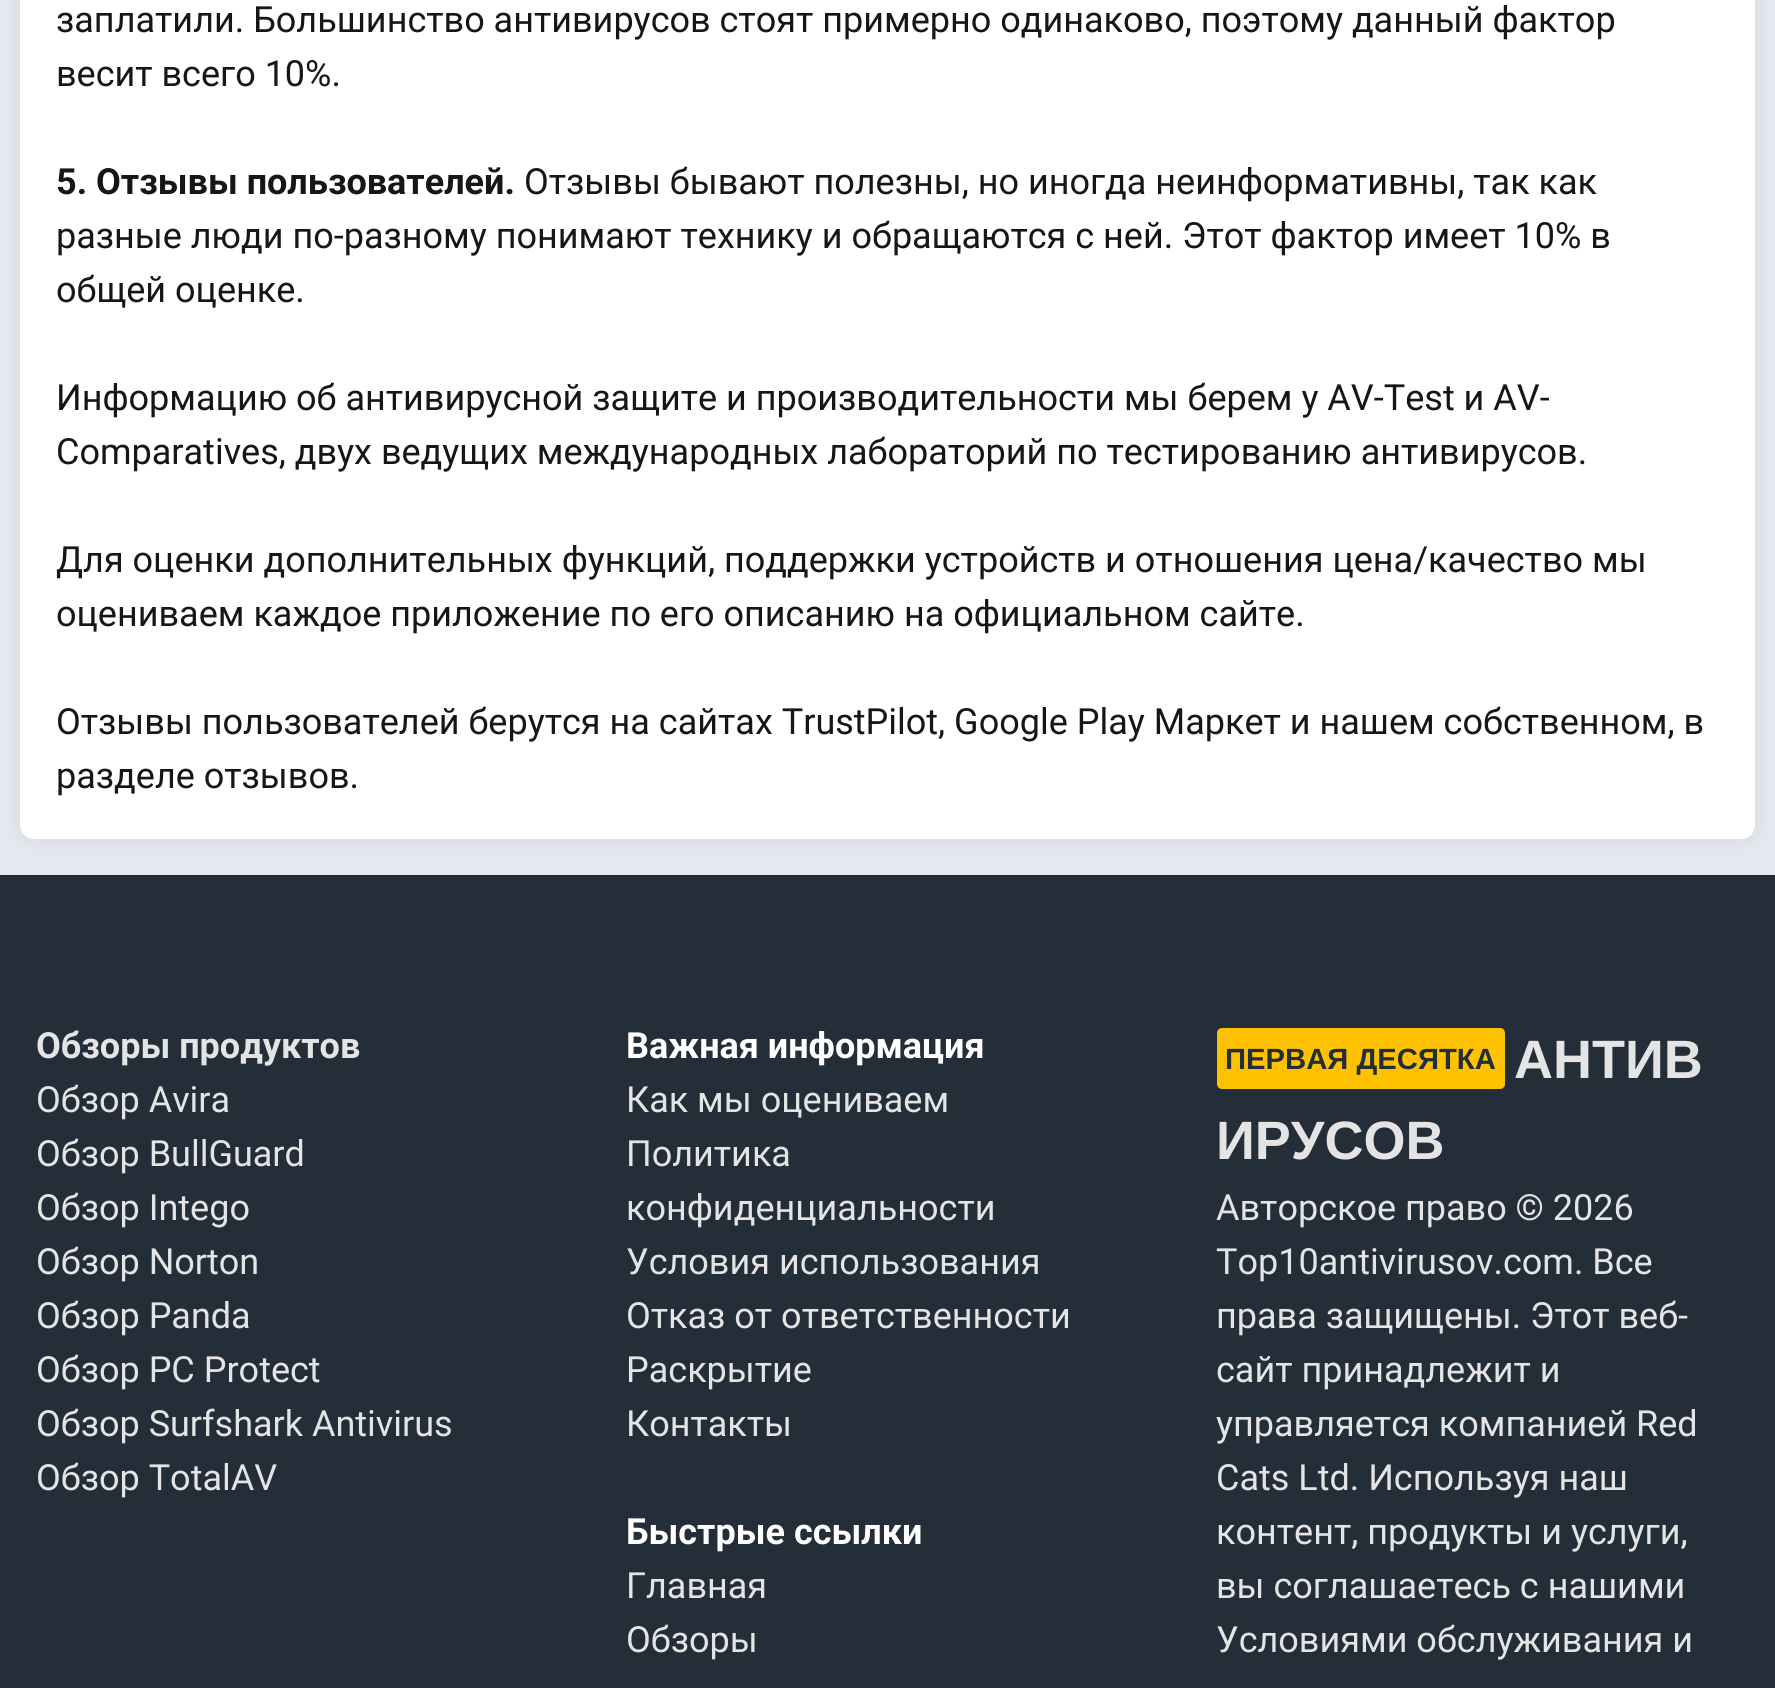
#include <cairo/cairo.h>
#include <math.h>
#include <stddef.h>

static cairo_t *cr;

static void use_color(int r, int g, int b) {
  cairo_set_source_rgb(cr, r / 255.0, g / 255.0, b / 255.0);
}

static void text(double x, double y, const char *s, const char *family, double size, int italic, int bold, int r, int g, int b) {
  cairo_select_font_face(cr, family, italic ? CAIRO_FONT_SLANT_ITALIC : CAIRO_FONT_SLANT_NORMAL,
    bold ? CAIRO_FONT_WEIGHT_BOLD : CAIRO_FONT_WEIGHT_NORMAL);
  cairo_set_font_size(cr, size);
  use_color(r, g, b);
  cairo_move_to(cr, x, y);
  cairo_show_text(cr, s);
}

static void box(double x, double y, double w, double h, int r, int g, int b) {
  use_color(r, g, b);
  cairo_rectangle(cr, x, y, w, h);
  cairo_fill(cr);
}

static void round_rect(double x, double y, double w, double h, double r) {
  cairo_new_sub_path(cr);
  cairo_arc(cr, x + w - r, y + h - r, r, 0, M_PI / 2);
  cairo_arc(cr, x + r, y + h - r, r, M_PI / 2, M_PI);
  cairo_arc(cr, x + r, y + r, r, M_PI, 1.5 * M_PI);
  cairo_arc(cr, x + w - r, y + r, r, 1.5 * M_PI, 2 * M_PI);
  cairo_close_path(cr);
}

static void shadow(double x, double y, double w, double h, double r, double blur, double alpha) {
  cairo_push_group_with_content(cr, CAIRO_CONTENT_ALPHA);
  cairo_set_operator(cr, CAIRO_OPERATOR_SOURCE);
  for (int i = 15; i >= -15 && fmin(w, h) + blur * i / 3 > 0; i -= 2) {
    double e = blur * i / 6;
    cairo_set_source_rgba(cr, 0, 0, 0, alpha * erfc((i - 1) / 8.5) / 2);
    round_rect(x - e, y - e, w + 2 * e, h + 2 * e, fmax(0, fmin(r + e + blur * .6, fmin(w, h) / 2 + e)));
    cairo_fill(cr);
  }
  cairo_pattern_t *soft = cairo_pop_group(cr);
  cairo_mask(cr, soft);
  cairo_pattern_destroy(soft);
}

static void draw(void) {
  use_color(36, 46, 57);
  cairo_paint(cr);
  box(0, 0, 1775, 875, 230, 233, 240);
  use_color(150, 150, 150);
  shadow(20, -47, 1735, 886, 14, 11, 0.25);
  use_color(255, 255, 255);
  round_rect(20, -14, 1735, 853, 14);
  cairo_fill(cr);
  use_color(255, 194, 0);
  round_rect(1217, 1028, 288, 61, 5);
  cairo_fill(cr);
  text(56, 32, "заплатили. Большинство антивирусов стоят примерно одинаково, поэтому данный фактор", "Roboto", 36, 0, 0, 22, 22, 22);
  text(56, 86, "весит всего 10%.", "Roboto", 36, 0, 0, 22, 22, 22);
  text(56, 194, "5. Отзывы пользователей.", "Roboto", 36, 0, 1, 22, 22, 22);
  text(524, 194, "Отзывы бывают полезны, но иногда неинформативны, так как", "Roboto", 36, 0, 0, 22, 22, 22);
  text(56, 248, "разные люди по-разному понимают технику и обращаются с ней. Этот фактор имеет 10% в", "Roboto", 36, 0, 0, 22, 22, 22);
  text(56, 302, "общей оценке.", "Roboto", 36, 0, 0, 22, 22, 22);
  text(56, 410, "Информацию об антивирусной защите и производительности мы берем у AV-Test и AV-", "Roboto", 36, 0, 0, 22, 22, 22);
  text(56, 464, "Comparatives, двух ведущих международных лабораторий по тестированию антивирусов.", "Roboto", 36, 0, 0, 22, 22, 22);
  text(56, 572, "Для оценки дополнительных функций, поддержки устройств и отношения цена/качество мы", "Roboto", 36, 0, 0, 22, 22, 22);
  text(56, 626, "оцениваем каждое приложение по его описанию на официальном сайте.", "Roboto", 36, 0, 0, 22, 22, 22);
  text(56, 734, "Отзывы пользователей берутся на сайтах TrustPilot, Google Play Маркет и нашем собственном, в", "Roboto", 36, 0, 0, 22, 22, 22);
  text(56, 788, "разделе отзывов.", "Roboto", 36, 0, 0, 22, 22, 22);
  text(36, 1058, "Обзоры продуктов", "Roboto", 36, 0, 1, 228, 228, 228);
  text(36, 1112, "Обзор Avira", "Roboto", 36, 0, 0, 228, 228, 228);
  text(36, 1166, "Обзор BullGuard", "Roboto", 36, 0, 0, 228, 228, 228);
  text(36, 1220, "Обзор Intego", "Roboto", 36, 0, 0, 228, 228, 228);
  text(36, 1274, "Обзор Norton", "Roboto", 36, 0, 0, 228, 228, 228);
  text(36, 1328, "Обзор Panda", "Roboto", 36, 0, 0, 228, 228, 228);
  text(36, 1382, "Обзор PC Protect", "Roboto", 36, 0, 0, 228, 228, 228);
  text(36, 1436, "Обзор Surfshark Antivirus", "Roboto", 36, 0, 0, 228, 228, 228);
  text(36, 1490, "Обзор TotalAV", "Roboto", 36, 0, 0, 228, 228, 228);
  text(626, 1058, "Важная информация", "Roboto", 36, 0, 1, 255, 255, 255);
  text(626, 1112, "Как мы оцениваем", "Roboto", 36, 0, 0, 228, 228, 228);
  text(626, 1166, "Политика", "Roboto", 36, 0, 0, 228, 228, 228);
  text(626, 1220, "конфиденциальности", "Roboto", 36, 0, 0, 228, 228, 228);
  text(626, 1274, "Условия использования", "Roboto", 36, 0, 0, 228, 228, 228);
  text(626, 1328, "Отказ от ответственности", "Roboto", 36, 0, 0, 228, 228, 228);
  text(626, 1382, "Раскрытие", "Roboto", 36, 0, 0, 228, 228, 228);
  text(626, 1436, "Контакты", "Roboto", 36, 0, 0, 228, 228, 228);
  text(626, 1544, "Быстрые ссылки", "Roboto", 36, 0, 1, 255, 255, 255);
  text(626, 1598, "Главная", "Roboto", 36, 0, 0, 228, 228, 228);
  text(626, 1652, "Обзоры", "Roboto", 36, 0, 0, 228, 228, 228);
  text(1225, 1069, "ПЕРВАЯ ДЕСЯТКА", "Liberation Sans", 29.25, 0, 1, 36, 46, 57);
  text(1514, 1078, "АНТИВ", "Liberation Sans", 54, 0, 1, 228, 228, 228);
  text(1216, 1159, "ИРУСОВ", "Liberation Sans", 54, 0, 1, 228, 228, 228);
  text(1216, 1220, "Авторское право © 2026", "Roboto", 36, 0, 0, 228, 228, 228);
  text(1216, 1274, "Top10antivirusov.com. Все", "Roboto", 36, 0, 0, 228, 228, 228);
  text(1216, 1328, "права защищены. Этот веб-", "Roboto", 36, 0, 0, 228, 228, 228);
  text(1216, 1382, "сайт принадлежит и", "Roboto", 36, 0, 0, 228, 228, 228);
  text(1216, 1436, "управляется компанией Red", "Roboto", 36, 0, 0, 228, 228, 228);
  text(1216, 1490, "Cats Ltd. Используя наш", "Roboto", 36, 0, 0, 228, 228, 228);
  text(1216, 1544, "контент, продукты и услуги,", "Roboto", 36, 0, 0, 228, 228, 228);
  text(1216, 1598, "вы соглашаетесь с нашими", "Roboto", 36, 0, 0, 228, 228, 228);
  text(1216, 1652, "Условиями обслуживания и", "Roboto", 36, 0, 0, 228, 228, 228);
}

int main(void) {
  cairo_surface_t *surface = cairo_image_surface_create(CAIRO_FORMAT_RGB24, 1775, 1688);
  cr = cairo_create(surface);
  cairo_font_options_t *options = cairo_font_options_create();
  cairo_font_options_set_hint_metrics(options, CAIRO_HINT_METRICS_OFF);
  cairo_font_options_set_hint_style(options, CAIRO_HINT_STYLE_NONE);
  cairo_set_font_options(cr, options);
  cairo_set_miter_limit(cr, 4);
  draw();
  cairo_surface_write_to_png(surface, "out.png");
  cairo_font_options_destroy(options);
  cairo_destroy(cr);
  cairo_surface_destroy(surface);
  return 0;
}
